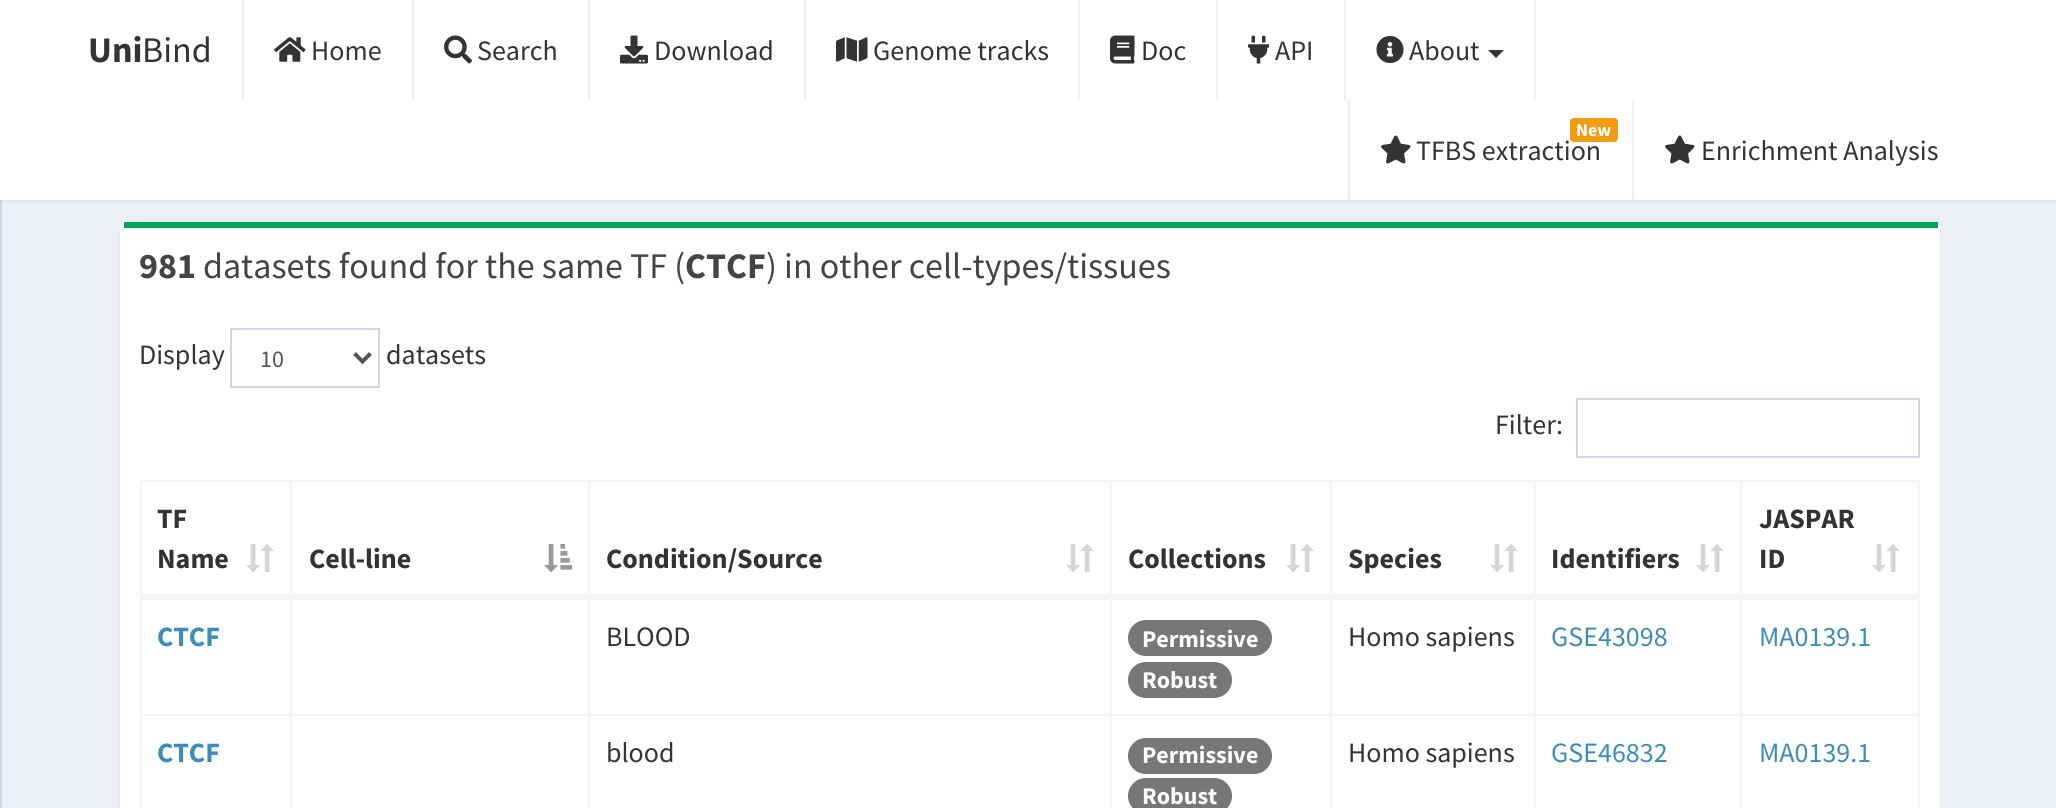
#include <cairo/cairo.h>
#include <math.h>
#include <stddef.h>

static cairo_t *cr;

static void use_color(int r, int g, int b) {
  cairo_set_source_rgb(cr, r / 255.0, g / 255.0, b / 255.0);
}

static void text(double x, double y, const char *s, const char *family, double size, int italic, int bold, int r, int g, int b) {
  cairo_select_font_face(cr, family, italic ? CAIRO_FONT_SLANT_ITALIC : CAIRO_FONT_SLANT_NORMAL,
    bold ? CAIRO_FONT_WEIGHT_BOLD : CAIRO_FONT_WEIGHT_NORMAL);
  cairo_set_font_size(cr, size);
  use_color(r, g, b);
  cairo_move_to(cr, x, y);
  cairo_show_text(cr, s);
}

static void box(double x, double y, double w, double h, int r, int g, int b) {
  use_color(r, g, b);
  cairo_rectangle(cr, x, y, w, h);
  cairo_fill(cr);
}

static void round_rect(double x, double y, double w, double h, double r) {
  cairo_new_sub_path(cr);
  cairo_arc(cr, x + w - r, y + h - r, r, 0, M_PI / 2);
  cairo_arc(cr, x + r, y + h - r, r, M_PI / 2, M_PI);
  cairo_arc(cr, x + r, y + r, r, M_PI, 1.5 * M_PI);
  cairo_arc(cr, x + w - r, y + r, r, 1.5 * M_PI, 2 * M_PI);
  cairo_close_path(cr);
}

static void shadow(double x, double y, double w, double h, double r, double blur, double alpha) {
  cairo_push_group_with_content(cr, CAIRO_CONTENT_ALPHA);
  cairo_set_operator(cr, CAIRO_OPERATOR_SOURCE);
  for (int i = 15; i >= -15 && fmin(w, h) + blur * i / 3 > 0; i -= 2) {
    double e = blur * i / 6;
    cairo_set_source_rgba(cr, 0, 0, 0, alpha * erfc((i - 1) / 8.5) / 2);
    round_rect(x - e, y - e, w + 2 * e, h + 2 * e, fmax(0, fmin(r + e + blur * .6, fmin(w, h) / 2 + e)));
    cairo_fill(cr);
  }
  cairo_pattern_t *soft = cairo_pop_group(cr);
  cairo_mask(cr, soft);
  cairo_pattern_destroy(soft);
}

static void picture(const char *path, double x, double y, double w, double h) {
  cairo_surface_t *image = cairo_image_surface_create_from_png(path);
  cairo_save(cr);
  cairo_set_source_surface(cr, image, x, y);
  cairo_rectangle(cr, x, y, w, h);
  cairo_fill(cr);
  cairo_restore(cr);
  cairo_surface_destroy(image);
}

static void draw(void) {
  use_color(236, 240, 245);
  cairo_paint(cr);
  box(0, 200, 2, 608, 210, 214, 222);
  use_color(0, 0, 0);
  shadow(0, 2, 2056, 200, 0, 1, 0.05);
  box(0, 0, 2056, 200, 255, 255, 255);
  box(242, 0, 2, 100, 238, 238, 238);
  box(412, 0, 2, 100, 238, 238, 238);
  picture("img_01.png", 274, 37, 32, 25);
  box(588, 0, 2, 100, 238, 238, 238);
  picture("img_02.png", 444, 35, 28, 29);
  box(804, 0, 2, 100, 238, 238, 238);
  picture("img_03.png", 620, 35, 28, 29);
  box(1078, 0, 2, 100, 238, 238, 238);
  picture("img_04.png", 836, 37, 32, 25);
  box(1216, 0, 2, 100, 238, 238, 238);
  picture("img_05.png", 1110, 35, 25, 29);
  box(1344, 0, 2, 100, 238, 238, 238);
  picture("img_06.png", 1248, 35, 21, 29);
  box(1534, 0, 2, 100, 238, 238, 238);
  picture("img_07.png", 1376, 36, 28, 27);
  use_color(51, 51, 51);
  cairo_new_path(cr);
  cairo_move_to(cr, 1488, 50);
  cairo_line_to(cr, 1504, 50);
  cairo_line_to(cr, 1496, 58);
  cairo_close_path(cr);
  cairo_fill(cr);
  box(1348, 100, 2, 100, 238, 238, 238);
  picture("img_08.png", 1381, 135, 30, 29);
  box(1632, 100, 2, 100, 238, 238, 238);
  picture("img_08.png", 1665, 135, 30, 29);
  use_color(0, 0, 0);
  shadow(120, 224, 1820, 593, 6, 1, 0.1);
  use_color(255, 255, 255);
  round_rect(120, 222, 1820, 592, 6);
  cairo_fill(cr);
  box(124, 222, 1814, 6, 0, 166, 90);
  cairo_rectangle(cr, 231, 329, 148, 58);
  use_color(210, 214, 222);
  cairo_stroke(cr);
  cairo_new_path(cr);
  cairo_move_to(cr, 354.5, 353.5);
  cairo_line_to(cr, 362.5, 361.5);
  cairo_line_to(cr, 370.5, 353.5);
  use_color(85, 85, 85);
  cairo_set_line_width(cr, 4);
  cairo_stroke(cr);
  cairo_rectangle(cr, 1577, 399, 342, 58);
  use_color(210, 214, 222);
  cairo_set_line_width(cr, 2);
  cairo_stroke(cr);
  cairo_rectangle(cr, 141, 481, 1778, 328);
  use_color(244, 244, 244);
  cairo_stroke(cr);
  box(142, 598, 1776, 2, 244, 244, 244);
  box(290, 482, 2, 232, 244, 244, 244);
  box(588, 482, 2, 232, 244, 244, 244);
  box(1110, 482, 2, 232, 244, 244, 244);
  box(1330, 482, 2, 232, 244, 244, 244);
  box(1534, 482, 2, 232, 244, 244, 244);
  box(1740, 482, 2, 232, 244, 244, 244);
  box(142, 594, 1776, 4, 244, 244, 244);
  picture("img_09.png", 246, 544, 28, 28);
  picture("img_10.png", 544, 544, 29, 28);
  picture("img_09.png", 1066, 544, 28, 28);
  picture("img_09.png", 1286, 544, 28, 28);
  picture("img_09.png", 1490, 544, 28, 28);
  picture("img_09.png", 1696, 544, 28, 28);
  picture("img_09.png", 1872, 544, 28, 28);
  use_color(119, 119, 119);
  round_rect(1128, 620, 144, 36, 18);
  cairo_fill(cr);
  round_rect(1128, 662, 104, 36, 18);
  cairo_fill(cr);
  box(142, 714, 1776, 2, 244, 244, 244);
  box(290, 714, 2, 94, 244, 244, 244);
  box(588, 714, 2, 94, 244, 244, 244);
  box(1110, 714, 2, 94, 244, 244, 244);
  box(1330, 714, 2, 94, 244, 244, 244);
  use_color(119, 119, 119);
  round_rect(1128, 738, 144, 36, 18);
  cairo_fill(cr);
  round_rect(1128, 778, 104, 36, 18);
  cairo_fill(cr);
  box(1534, 714, 2, 94, 244, 244, 244);
  box(1740, 714, 2, 94, 244, 244, 244);
  text(88, 62, "Uni", "Source Sans Pro", 36, 0, 1, 51, 51, 51);
  text(142, 62, "Bind", "Source Sans Pro", 36, 0, 0, 51, 51, 51);
  text(311, 60, "Home", "Source Sans Pro", 28, 0, 0, 51, 51, 51);
  text(477, 60, "Search", "Source Sans Pro", 28, 0, 0, 51, 51, 51);
  text(654, 60, "Download", "Source Sans Pro", 28, 0, 0, 51, 51, 51);
  text(873, 60, "Genome tracks", "Source Sans Pro", 28, 0, 0, 51, 51, 51);
  text(1141, 60, "Doc", "Source Sans Pro", 28, 0, 0, 51, 51, 51);
  text(1275, 60, "API", "Source Sans Pro", 28, 0, 0, 51, 51, 51);
  text(1409, 60, "About", "Source Sans Pro", 28, 0, 0, 51, 51, 51);
  text(1416, 160, "TFBS extraction", "Source Sans Pro", 28, 0, 0, 51, 51, 51);
  use_color(243, 156, 18);
  round_rect(1570, 118, 48, 24, 4);
  cairo_fill(cr);
  text(1576, 136, "New", "Source Sans Pro", 18, 0, 1, 255, 255, 255);
  text(1701, 160, "Enrichment Analysis", "Source Sans Pro", 28, 0, 0, 51, 51, 51);
  text(139, 278, "981", "Source Sans Pro", 36, 0, 1, 68, 68, 68);
  text(203, 278, "datasets found for the same TF (", "Source Sans Pro", 36, 0, 0, 68, 68, 68);
  text(685, 278, "CTCF", "Source Sans Pro", 36, 0, 1, 68, 68, 68);
  text(766, 278, ") in other cell-types/tissues", "Source Sans Pro", 36, 0, 0, 68, 68, 68);
  text(139, 364, "Display", "Source Sans Pro", 28, 0, 0, 51, 51, 51);
  text(260, 367, "10", "Source Sans Pro", 24, 0, 0, 85, 85, 85);
  text(386, 364, "datasets", "Source Sans Pro", 28, 0, 0, 51, 51, 51);
  text(1495, 434, "Filter:", "Source Sans Pro", 28, 0, 0, 51, 51, 51);
  text(157, 528, "TF", "Source Sans Pro", 28, 0, 1, 51, 51, 51);
  text(157, 568, "Name", "Source Sans Pro", 28, 0, 1, 51, 51, 51);
  text(309, 568, "Cell-line", "Source Sans Pro", 28, 0, 1, 51, 51, 51);
  text(606, 568, "Condition/Source", "Source Sans Pro", 28, 0, 1, 51, 51, 51);
  text(1128, 568, "Collections", "Source Sans Pro", 28, 0, 1, 51, 51, 51);
  text(1348, 568, "Species", "Source Sans Pro", 28, 0, 1, 51, 51, 51);
  text(1551, 568, "Identifiers", "Source Sans Pro", 28, 0, 1, 51, 51, 51);
  text(1759, 528, "JASPAR", "Source Sans Pro", 28, 0, 1, 51, 51, 51);
  text(1759, 568, "ID", "Source Sans Pro", 28, 0, 1, 51, 51, 51);
  text(157, 646, "CTCF", "Source Sans Pro", 28, 0, 1, 60, 141, 188);
  text(606, 646, "BLOOD", "Source Sans Pro", 28, 0, 0, 51, 51, 51);
  text(1142, 647, "Permissive", "Source Sans Pro", 24, 0, 1, 255, 255, 255);
  text(1142, 688, "Robust", "Source Sans Pro", 24, 0, 1, 255, 255, 255);
  text(1348, 646, "Homo sapiens", "Source Sans Pro", 28, 0, 0, 51, 51, 51);
  text(1551, 646, "GSE43098", "Source Sans Pro", 28, 0, 0, 60, 141, 188);
  text(1759, 646, "MA0139.1", "Source Sans Pro", 28, 0, 0, 60, 141, 188);
  text(157, 762, "CTCF", "Source Sans Pro", 28, 0, 1, 60, 141, 188);
  text(606, 762, "blood", "Source Sans Pro", 28, 0, 0, 51, 51, 51);
  text(1142, 763, "Permissive", "Source Sans Pro", 24, 0, 1, 255, 255, 255);
  text(1142, 804, "Robust", "Source Sans Pro", 24, 0, 1, 255, 255, 255);
  text(1348, 762, "Homo sapiens", "Source Sans Pro", 28, 0, 0, 51, 51, 51);
  text(1551, 762, "GSE46832", "Source Sans Pro", 28, 0, 0, 60, 141, 188);
  text(1759, 762, "MA0139.1", "Source Sans Pro", 28, 0, 0, 60, 141, 188);
}

int main(void) {
  cairo_surface_t *surface = cairo_image_surface_create(CAIRO_FORMAT_RGB24, 2056, 808);
  cr = cairo_create(surface);
  cairo_font_options_t *options = cairo_font_options_create();
  cairo_font_options_set_hint_metrics(options, CAIRO_HINT_METRICS_OFF);
  cairo_font_options_set_hint_style(options, CAIRO_HINT_STYLE_NONE);
  cairo_set_font_options(cr, options);
  cairo_set_miter_limit(cr, 4);
  draw();
  cairo_surface_write_to_png(surface, "out.png");
  cairo_font_options_destroy(options);
  cairo_destroy(cr);
  cairo_surface_destroy(surface);
  return 0;
}
